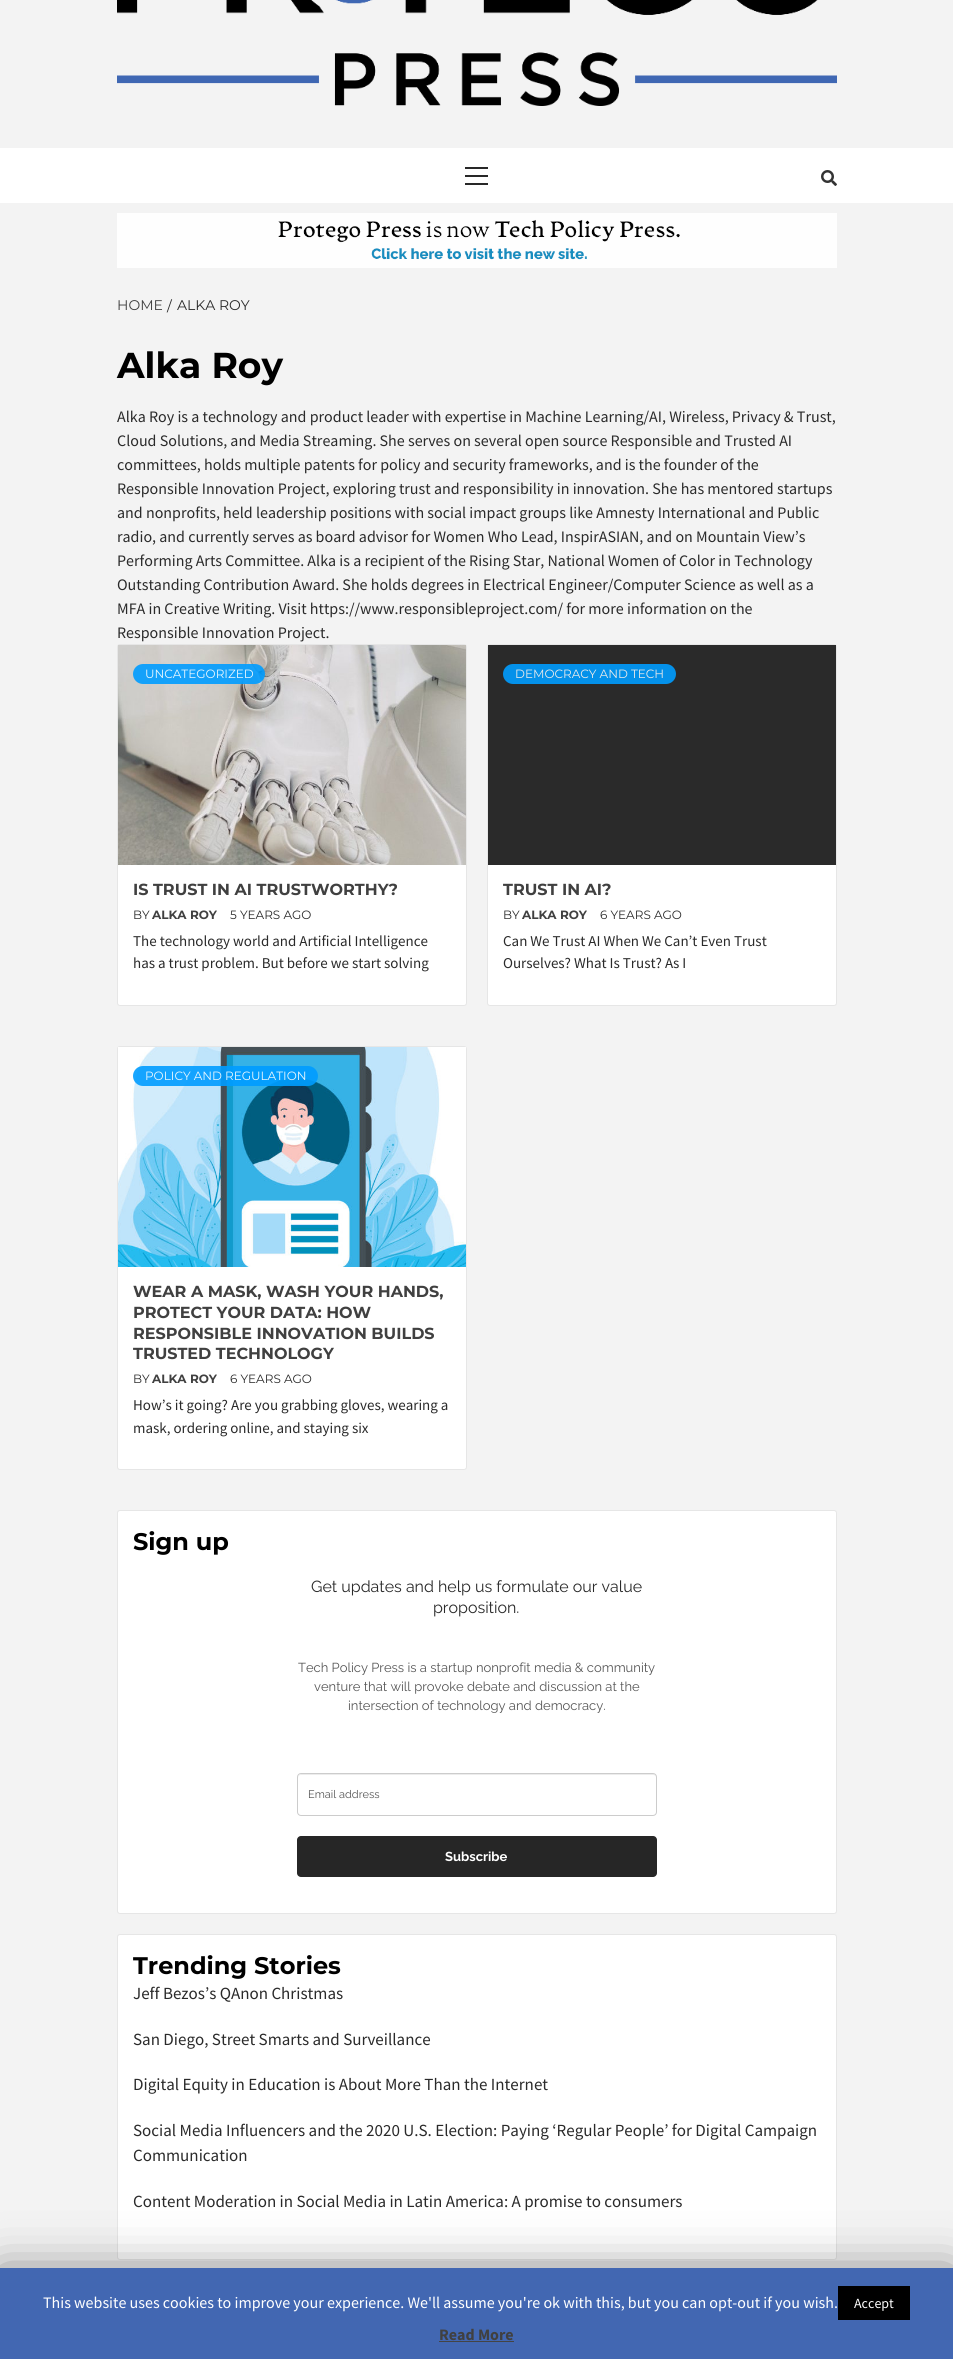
#include <cairo/cairo.h>
#include <math.h>
#include <stddef.h>

static cairo_t *cr;

static void use_color(int r, int g, int b) {
  cairo_set_source_rgb(cr, r / 255.0, g / 255.0, b / 255.0);
}

static void text(double x, double y, const char *s, const char *family, double size, int italic, int bold, int r, int g, int b) {
  cairo_select_font_face(cr, family, italic ? CAIRO_FONT_SLANT_ITALIC : CAIRO_FONT_SLANT_NORMAL,
    bold ? CAIRO_FONT_WEIGHT_BOLD : CAIRO_FONT_WEIGHT_NORMAL);
  cairo_set_font_size(cr, size);
  use_color(r, g, b);
  cairo_move_to(cr, x, y);
  cairo_show_text(cr, s);
}

static void box(double x, double y, double w, double h, int r, int g, int b) {
  use_color(r, g, b);
  cairo_rectangle(cr, x, y, w, h);
  cairo_fill(cr);
}

static void round_rect(double x, double y, double w, double h, double r) {
  cairo_new_sub_path(cr);
  cairo_arc(cr, x + w - r, y + h - r, r, 0, M_PI / 2);
  cairo_arc(cr, x + r, y + h - r, r, M_PI / 2, M_PI);
  cairo_arc(cr, x + r, y + r, r, M_PI, 1.5 * M_PI);
  cairo_arc(cr, x + w - r, y + r, r, 1.5 * M_PI, 2 * M_PI);
  cairo_close_path(cr);
}

static void shadow(double x, double y, double w, double h, double r, double blur, double alpha) {
  cairo_push_group_with_content(cr, CAIRO_CONTENT_ALPHA);
  cairo_set_operator(cr, CAIRO_OPERATOR_SOURCE);
  for (int i = 15; i >= -15 && fmin(w, h) + blur * i / 3 > 0; i -= 2) {
    double e = blur * i / 6;
    cairo_set_source_rgba(cr, 0, 0, 0, alpha * erfc((i - 1) / 8.5) / 2);
    round_rect(x - e, y - e, w + 2 * e, h + 2 * e, fmax(0, fmin(r + e + blur * .6, fmin(w, h) / 2 + e)));
    cairo_fill(cr);
  }
  cairo_pattern_t *soft = cairo_pop_group(cr);
  cairo_mask(cr, soft);
  cairo_pattern_destroy(soft);
}

static void picture(const char *path, double x, double y, double w, double h) {
  cairo_surface_t *image = cairo_image_surface_create_from_png(path);
  cairo_save(cr);
  cairo_set_source_surface(cr, image, x, y);
  cairo_rectangle(cr, x, y, w, h);
  cairo_fill(cr);
  cairo_restore(cr);
  cairo_surface_destroy(image);
}

static void draw(void) {
  use_color(243, 243, 243);
  cairo_paint(cr);
  picture("img_01.png", 117, 0, 720, 106);
  box(0, 148, 953, 55, 255, 255, 255);
  box(465, 175, 23, 2, 40, 40, 40);
  box(465, 167, 23, 2, 40, 40, 40);
  box(465, 183, 23, 2, 40, 40, 40);
  picture("img_02.png", 821, 170, 16, 16);
  picture("img_03.png", 117, 213, 720, 55);
  use_color(255, 255, 255);
  round_rect(117, 644, 350, 362, 3);
  cairo_fill(cr);
  round_rect(117.5, 644.5, 349, 361, 2.5);
  cairo_set_source_rgba(cr, 0, 0.004, 0.004, 0.1);
  cairo_set_line_width(cr, 1);
  cairo_stroke(cr);
  picture("img_04.png", 118, 645, 348, 220);
  cairo_set_source_rgba(cr, 0, 0.612, 1, 0.9);
  round_rect(133, 664, 132, 20, 10);
  cairo_fill(cr);
  use_color(255, 255, 255);
  round_rect(487, 644, 350, 362, 3);
  cairo_fill(cr);
  round_rect(487.5, 644.5, 349, 361, 2.5);
  cairo_set_source_rgba(cr, 0, 0.004, 0.004, 0.1);
  cairo_stroke(cr);
  box(488, 645, 348, 220, 42, 42, 42);
  use_color(4, 145, 234);
  round_rect(503, 664, 173, 20, 10);
  cairo_fill(cr);
  use_color(255, 255, 255);
  round_rect(117, 1046, 350, 424, 3);
  cairo_fill(cr);
  round_rect(117.5, 1046.5, 349, 423, 2.5);
  cairo_set_source_rgba(cr, 0, 0.004, 0.004, 0.1);
  cairo_stroke(cr);
  picture("img_05.png", 118, 1047, 348, 220);
  cairo_set_source_rgba(cr, 0, 0.612, 1, 0.9);
  round_rect(133, 1066, 185, 20, 10);
  cairo_fill(cr);
  use_color(255, 255, 255);
  round_rect(117, 1510, 720, 404, 3);
  cairo_fill(cr);
  round_rect(117.5, 1510.5, 719, 403, 2.5);
  cairo_set_source_rgba(cr, 0, 0.004, 0.004, 0.1);
  cairo_stroke(cr);
  use_color(236, 236, 236);
  cairo_new_path(cr);
  cairo_move_to(cr, 301, 1775);
  cairo_line_to(cr, 653, 1775);
  cairo_curve_to(cr, 655, 1775, 656, 1776, 656, 1778);
  cairo_curve_to(cr, 656, 1776, 655, 1774, 653, 1774);
  cairo_line_to(cr, 301, 1774);
  cairo_line_to(cr, 299, 1775);
  cairo_line_to(cr, 298, 1778);
  cairo_curve_to(cr, 298, 1776, 299, 1775, 301, 1775);
  cairo_close_path(cr);
  cairo_fill(cr);
  round_rect(297.5, 1773.5, 359, 42, 3.5);
  use_color(204, 204, 204);
  cairo_stroke(cr);
  use_color(38, 38, 38);
  round_rect(297, 1836, 360, 41, 4);
  cairo_fill(cr);
  use_color(255, 255, 255);
  round_rect(117, 1934, 720, 326, 3);
  cairo_fill(cr);
  round_rect(117.5, 1934.5, 719, 325, 2.5);
  cairo_set_source_rgba(cr, 0, 0.004, 0.004, 0.1);
  cairo_stroke(cr);
  use_color(0, 0, 0);
  shadow(0, 2273, 953, 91, 0, 25, 0.5);
  box(0, 2268, 953, 91, 66, 103, 178);
  box(838, 2286, 72, 34, 0, 0, 0);
  box(439, 2341, 75, 1, 68, 68, 68);
  text(117, 310, "HOME", "Montserrat", 14, 0, 0, 64, 64, 64);
  text(167, 311, "/", "Montserrat", 14, 0, 0, 42, 42, 42);
  text(177, 310, "ALKA ROY", "Montserrat", 14, 0, 0, 42, 42, 42);
  text(117, 378, "Alka Roy", "Montserrat", 36, 0, 1, 0, 0, 0);
  text(117, 422, "Alka Roy is a technology and product leader with expertise in Machine Learning/AI, Wireless, Privacy & Trust,", "Source Sans Pro", 16, 0, 0, 42, 42, 42);
  text(117, 446, "Cloud Solutions, and Media Streaming. She serves on several open source Responsible and Trusted AI", "Source Sans Pro", 16, 0, 0, 42, 42, 42);
  text(117, 470, "committees, holds multiple patents for policy and security frameworks, and is the founder of the", "Source Sans Pro", 16, 0, 0, 42, 42, 42);
  text(117, 494, "Responsible Innovation Project, exploring trust and responsibility in innovation. She has mentored startups", "Source Sans Pro", 16, 0, 0, 42, 42, 42);
  text(117, 518, "and nonprofits, held leadership positions with social impact groups like Amnesty International and Public", "Source Sans Pro", 16, 0, 0, 42, 42, 42);
  text(117, 542, "radio, and currently serves as board advisor for Women Who Lead, InspirASIAN, and on Mountain View’s", "Source Sans Pro", 16, 0, 0, 42, 42, 42);
  text(117, 566, "Performing Arts Committee. Alka is a recipient of the Rising Star, National Women of Color in Technology", "Source Sans Pro", 16, 0, 0, 42, 42, 42);
  text(117, 590, "Outstanding Contribution Award. She holds degrees in Electrical Engineer/Computer Science as well as a", "Source Sans Pro", 16, 0, 0, 42, 42, 42);
  text(117, 614, "MFA in Creative Writing. Visit https://www.responsibleproject.com/ for more information on the", "Source Sans Pro", 16, 0, 0, 42, 42, 42);
  text(117, 638, "Responsible Innovation Project.", "Source Sans Pro", 16, 0, 0, 42, 42, 42);
  text(145, 678, "UNCATEGORIZED", "Montserrat", 12, 0, 0, 232, 246, 254);
  text(133, 895, "IS TRUST IN AI TRUSTWORTHY?", "Montserrat", 16, 0, 1, 64, 64, 64);
  text(133, 919, "BY", "Montserrat", 12, 0, 0, 42, 42, 42);
  text(152, 919, "ALKA ROY", "Montserrat", 12, 0, 1, 64, 64, 64);
  text(230, 919, "5 YEARS AGO", "Montserrat", 12, 0, 0, 42, 42, 42);
  text(133, 946, "The technology world and Artificial Intelligence", "Source Sans Pro", 15, 0, 0, 42, 42, 42);
  text(133, 968, "has a trust problem. But before we start solving", "Source Sans Pro", 15, 0, 0, 42, 42, 42);
  text(515, 678, "DEMOCRACY AND TECH", "Montserrat", 12, 0, 0, 234, 234, 234);
  text(503, 895, "TRUST IN AI?", "Montserrat", 16, 0, 1, 64, 64, 64);
  text(503, 919, "BY", "Montserrat", 12, 0, 0, 42, 42, 42);
  text(522, 919, "ALKA ROY", "Montserrat", 12, 0, 1, 64, 64, 64);
  text(600, 919, "6 YEARS AGO", "Montserrat", 12, 0, 0, 42, 42, 42);
  text(503, 946, "Can We Trust AI When We Can’t Even Trust", "Source Sans Pro", 15, 0, 0, 42, 42, 42);
  text(503, 968, "Ourselves? What Is Trust? As I", "Source Sans Pro", 15, 0, 0, 42, 42, 42);
  text(145, 1080, "POLICY AND REGULATION", "Montserrat", 12, 0, 0, 232, 246, 254);
  text(133, 1297, "WEAR A MASK, WASH YOUR HANDS,", "Montserrat", 16, 0, 1, 64, 64, 64);
  text(133, 1318, "PROTECT YOUR DATA: HOW", "Montserrat", 16, 0, 1, 64, 64, 64);
  text(133, 1339, "RESPONSIBLE INNOVATION BUILDS", "Montserrat", 16, 0, 1, 64, 64, 64);
  text(133, 1359, "TRUSTED TECHNOLOGY", "Montserrat", 16, 0, 1, 64, 64, 64);
  text(133, 1383, "BY", "Montserrat", 12, 0, 0, 42, 42, 42);
  text(152, 1383, "ALKA ROY", "Montserrat", 12, 0, 1, 64, 64, 64);
  text(230, 1383, "6 YEARS AGO", "Montserrat", 12, 0, 0, 42, 42, 42);
  text(133, 1410, "How’s it going? Are you grabbing gloves, wearing a", "Source Sans Pro", 15, 0, 0, 42, 42, 42);
  text(133, 1433, "mask, ordering online, and staying six", "Source Sans Pro", 15, 0, 0, 42, 42, 42);
  text(133, 1550, "Sign up", "Montserrat", 24, 0, 1, 0, 0, 0);
  text(311, 1592, "Get updates and help us formulate our value", "Raleway", 16, 0, 0, 42, 42, 42);
  text(433, 1613, "proposition.", "Raleway", 16, 0, 0, 42, 42, 42);
  text(298, 1672, "Tech Policy Press is a startup nonprofit media & community", "Raleway", 13, 0, 0, 87, 87, 87);
  text(314, 1691, "venture that will provoke debate and discussion at the", "Raleway", 13, 0, 0, 87, 87, 87);
  text(348, 1710, "intersection of technology and democracy.", "Raleway", 13, 0, 0, 87, 87, 87);
  text(308, 1798, "Email address", "Raleway", 11, 0, 0, 87, 87, 87);
  text(445, 1861, "Subscribe", "Raleway", 13, 0, 1, 255, 255, 255);
  text(133, 1974, "Trending Stories", "Montserrat", 24, 0, 1, 0, 0, 0);
  text(133, 1999, "Jeff Bezos’s QAnon Christmas", "Source Sans Pro", 17, 0, 0, 42, 42, 42);
  text(133, 2045, "San Diego, Street Smarts and Surveillance", "Source Sans Pro", 17, 0, 0, 42, 42, 42);
  text(133, 2090, "Digital Equity in Education is About More Than the Internet", "Source Sans Pro", 17, 0, 0, 42, 42, 42);
  text(133, 2136, "Social Media Influencers and the 2020 U.S. Election: Paying ‘Regular People’ for Digital Campaign", "Source Sans Pro", 17, 0, 0, 42, 42, 42);
  text(133, 2161, "Communication", "Source Sans Pro", 17, 0, 0, 42, 42, 42);
  text(133, 2207, "Content Moderation in Social Media in Latin America: A promise to consumers", "Source Sans Pro", 17, 0, 0, 42, 42, 42);
  text(43, 2308, "This website uses cookies to improve your experience. We'll assume you're ok with this, but you can opt-out if you wish.", "Source Sans Pro", 16, 0, 0, 255, 255, 255);
  text(854, 2308, "Accept", "Source Sans Pro", 14, 0, 0, 255, 255, 255);
  text(439, 2340, "Read More", "Source Sans Pro", 16, 0, 1, 64, 64, 64);
}

int main(void) {
  cairo_surface_t *surface = cairo_image_surface_create(CAIRO_FORMAT_RGB24, 953, 2359);
  cr = cairo_create(surface);
  cairo_font_options_t *options = cairo_font_options_create();
  cairo_font_options_set_hint_metrics(options, CAIRO_HINT_METRICS_OFF);
  cairo_font_options_set_hint_style(options, CAIRO_HINT_STYLE_NONE);
  cairo_set_font_options(cr, options);
  cairo_set_miter_limit(cr, 4);
  draw();
  cairo_surface_write_to_png(surface, "out.png");
  cairo_font_options_destroy(options);
  cairo_destroy(cr);
  cairo_surface_destroy(surface);
  return 0;
}
